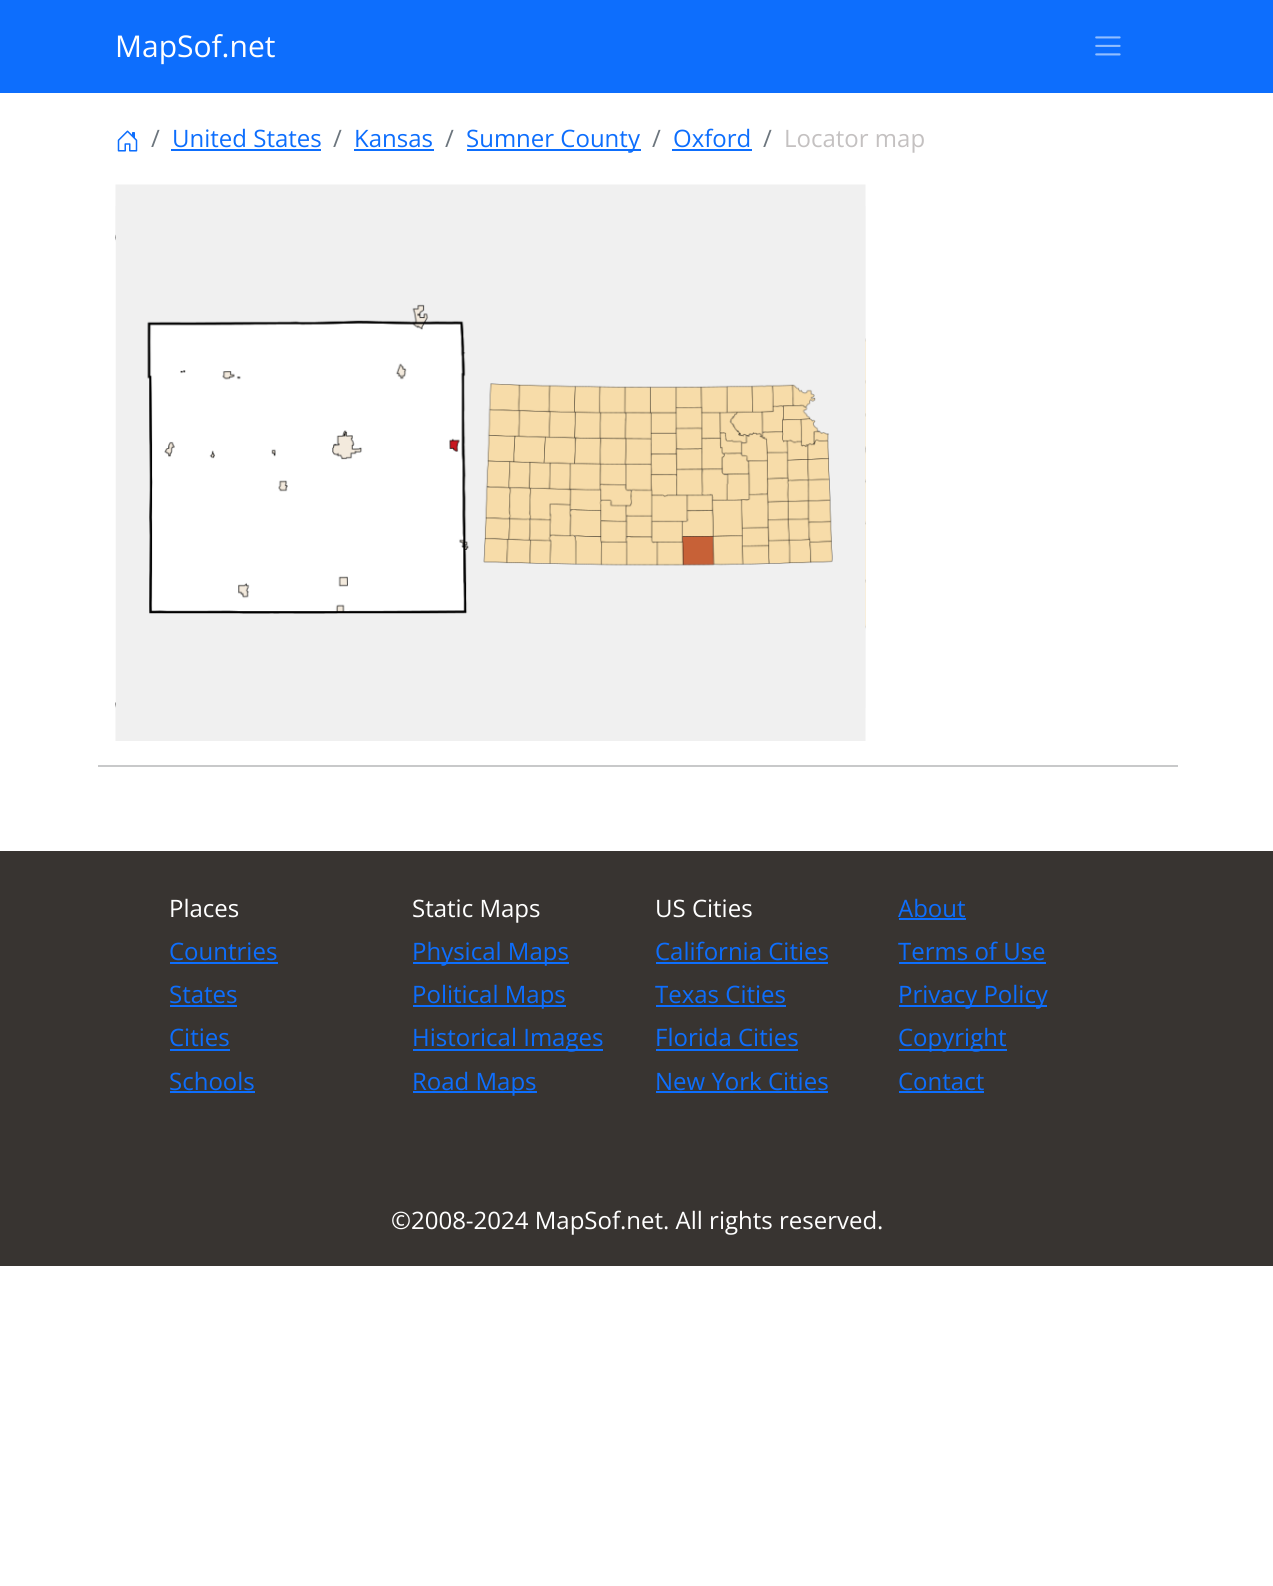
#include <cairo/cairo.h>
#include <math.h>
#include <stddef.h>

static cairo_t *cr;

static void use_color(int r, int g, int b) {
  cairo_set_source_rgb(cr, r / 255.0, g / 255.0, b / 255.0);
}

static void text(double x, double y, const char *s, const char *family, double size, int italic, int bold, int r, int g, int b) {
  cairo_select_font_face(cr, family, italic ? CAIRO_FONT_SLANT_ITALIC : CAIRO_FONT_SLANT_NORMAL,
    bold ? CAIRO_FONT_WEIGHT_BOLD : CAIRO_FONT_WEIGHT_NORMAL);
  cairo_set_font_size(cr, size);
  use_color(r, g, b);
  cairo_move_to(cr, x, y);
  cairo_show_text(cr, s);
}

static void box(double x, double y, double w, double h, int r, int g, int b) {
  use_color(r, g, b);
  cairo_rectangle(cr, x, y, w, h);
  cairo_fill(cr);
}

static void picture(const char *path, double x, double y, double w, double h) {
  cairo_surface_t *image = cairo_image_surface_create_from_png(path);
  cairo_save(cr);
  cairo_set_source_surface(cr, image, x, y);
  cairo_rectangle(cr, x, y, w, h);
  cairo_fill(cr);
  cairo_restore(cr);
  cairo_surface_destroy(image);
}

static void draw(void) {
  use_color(255, 255, 255);
  cairo_paint(cr);
  box(0, 0, 1273, 93, 13, 110, 253);
  picture("img_01.png", 1095, 36, 26, 20);
  picture("img_02.png", 117, 130, 21, 22);
  box(171, 149, 150, 2, 13, 110, 253);
  box(354, 149, 80, 2, 13, 110, 253);
  box(467, 149, 174, 2, 13, 110, 253);
  box(672, 149, 80, 2, 13, 110, 253);
  picture("img_03.png", 115, 184, 751, 557);
  picture("img_04.png", 115, 206, 751, 502);
  box(98, 765, 1080, 2, 200, 201, 202);
  box(0, 851, 1273, 415, 56, 52, 49);
  box(170, 962, 108, 2, 13, 110, 253);
  box(170, 1005, 67, 2, 13, 110, 253);
  box(170, 1049, 60, 2, 13, 110, 253);
  box(170, 1091, 85, 2, 13, 110, 253);
  box(413, 962, 156, 2, 13, 110, 253);
  box(413, 1005, 153, 2, 13, 110, 253);
  box(413, 1049, 190, 2, 13, 110, 253);
  box(413, 1091, 124, 2, 13, 110, 253);
  box(656, 962, 172, 2, 13, 110, 253);
  box(656, 1005, 130, 2, 13, 110, 253);
  box(656, 1049, 142, 2, 13, 110, 253);
  box(656, 1091, 172, 2, 13, 110, 253);
  box(899, 918, 67, 2, 13, 110, 253);
  box(899, 962, 147, 2, 13, 110, 253);
  box(899, 1005, 148, 2, 13, 110, 253);
  box(899, 1049, 108, 2, 13, 110, 253);
  box(899, 1091, 85, 2, 13, 110, 253);
  text(115, 57, "MapSof.net", "Open Sans", 30, 0, 0, 255, 255, 255);
  text(151, 147, "/", "Open Sans", 24, 0, 0, 108, 117, 125);
  text(172, 147, "United States", "Open Sans", 24, 0, 0, 13, 110, 253);
  text(333, 147, "/", "Open Sans", 24, 0, 0, 108, 117, 125);
  text(354, 147, "Kansas", "Open Sans", 24, 0, 0, 13, 110, 253);
  text(445, 147, "/", "Open Sans", 24, 0, 0, 108, 117, 125);
  text(466, 147, "Sumner County", "Open Sans", 24, 0, 0, 13, 110, 253);
  text(652, 147, "/", "Open Sans", 24, 0, 0, 108, 117, 125);
  text(673, 147, "Oxford", "Open Sans", 24, 0, 0, 13, 110, 253);
  text(763, 147, "/", "Open Sans", 24, 0, 0, 108, 117, 125);
  text(784, 147, "Locator map", "Open Sans", 24, 0, 0, 196, 193, 193);
  text(169, 917, "Places", "Open Sans", 24, 0, 0, 255, 255, 255);
  text(169, 960, "Countries", "Open Sans", 24, 0, 0, 13, 110, 253);
  text(169, 1003, "States", "Open Sans", 24, 0, 0, 13, 110, 253);
  text(169, 1046, "Cities", "Open Sans", 24, 0, 0, 13, 110, 253);
  text(169, 1090, "Schools", "Open Sans", 24, 0, 0, 13, 110, 253);
  text(412, 917, "Static Maps", "Open Sans", 24, 0, 0, 255, 255, 255);
  text(412, 960, "Physical Maps", "Open Sans", 24, 0, 0, 13, 110, 253);
  text(412, 1003, "Political Maps", "Open Sans", 24, 0, 0, 13, 110, 253);
  text(412, 1046, "Historical Images", "Open Sans", 24, 0, 0, 13, 110, 253);
  text(412, 1090, "Road Maps", "Open Sans", 24, 0, 0, 13, 110, 253);
  text(655, 917, "US Cities", "Open Sans", 24, 0, 0, 255, 255, 255);
  text(655, 960, "California Cities", "Open Sans", 24, 0, 0, 13, 110, 253);
  text(655, 1003, "Texas Cities", "Open Sans", 24, 0, 0, 13, 110, 253);
  text(655, 1046, "Florida Cities", "Open Sans", 24, 0, 0, 13, 110, 253);
  text(655, 1090, "New York Cities", "Open Sans", 24, 0, 0, 13, 110, 253);
  text(898, 917, "About", "Open Sans", 24, 0, 0, 13, 110, 253);
  text(898, 960, "Terms of Use", "Open Sans", 24, 0, 0, 13, 110, 253);
  text(898, 1003, "Privacy Policy", "Open Sans", 24, 0, 0, 13, 110, 253);
  text(898, 1046, "Copyright", "Open Sans", 24, 0, 0, 13, 110, 253);
  text(898, 1090, "Contact", "Open Sans", 24, 0, 0, 13, 110, 253);
  text(391, 1229, "©2008-2024 MapSof.net. All rights reserved.", "Open Sans", 24, 0, 0, 255, 255, 255);
}

int main(void) {
  cairo_surface_t *surface = cairo_image_surface_create(CAIRO_FORMAT_RGB24, 1273, 1586);
  cr = cairo_create(surface);
  cairo_font_options_t *options = cairo_font_options_create();
  cairo_font_options_set_hint_metrics(options, CAIRO_HINT_METRICS_OFF);
  cairo_font_options_set_hint_style(options, CAIRO_HINT_STYLE_NONE);
  cairo_set_font_options(cr, options);
  cairo_set_miter_limit(cr, 4);
  draw();
  cairo_surface_write_to_png(surface, "out.png");
  cairo_font_options_destroy(options);
  cairo_destroy(cr);
  cairo_surface_destroy(surface);
  return 0;
}
